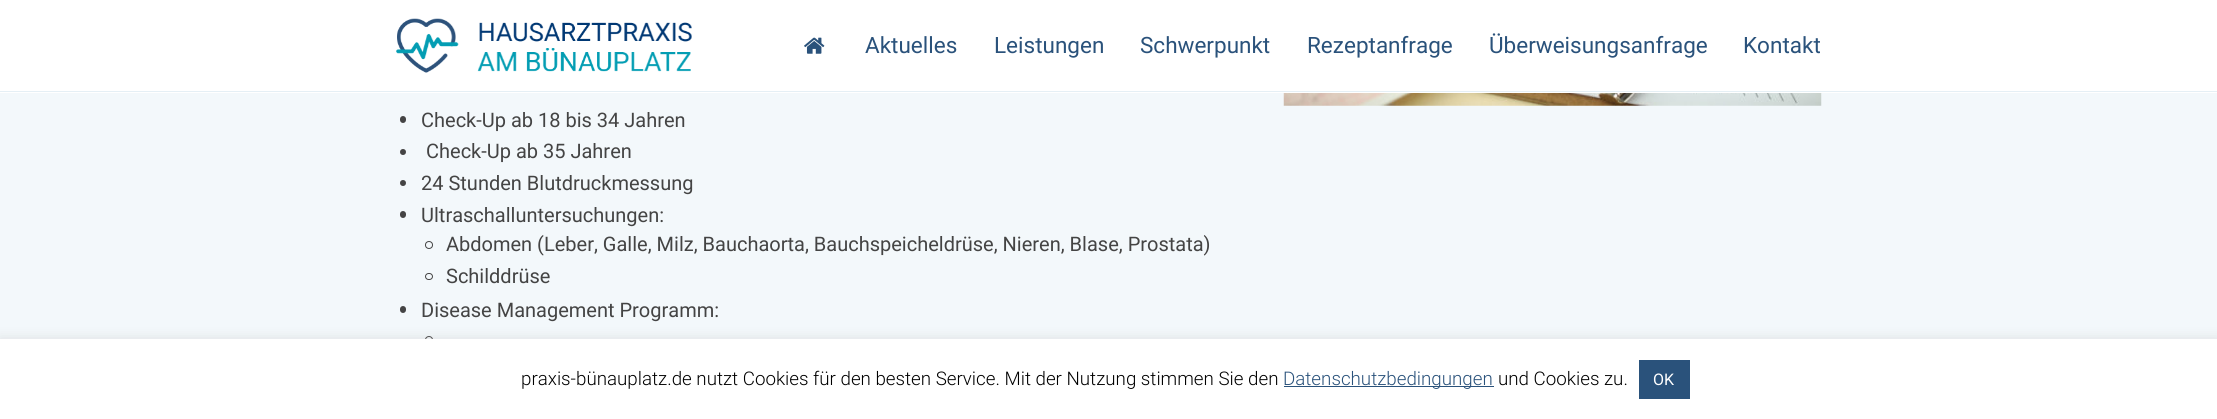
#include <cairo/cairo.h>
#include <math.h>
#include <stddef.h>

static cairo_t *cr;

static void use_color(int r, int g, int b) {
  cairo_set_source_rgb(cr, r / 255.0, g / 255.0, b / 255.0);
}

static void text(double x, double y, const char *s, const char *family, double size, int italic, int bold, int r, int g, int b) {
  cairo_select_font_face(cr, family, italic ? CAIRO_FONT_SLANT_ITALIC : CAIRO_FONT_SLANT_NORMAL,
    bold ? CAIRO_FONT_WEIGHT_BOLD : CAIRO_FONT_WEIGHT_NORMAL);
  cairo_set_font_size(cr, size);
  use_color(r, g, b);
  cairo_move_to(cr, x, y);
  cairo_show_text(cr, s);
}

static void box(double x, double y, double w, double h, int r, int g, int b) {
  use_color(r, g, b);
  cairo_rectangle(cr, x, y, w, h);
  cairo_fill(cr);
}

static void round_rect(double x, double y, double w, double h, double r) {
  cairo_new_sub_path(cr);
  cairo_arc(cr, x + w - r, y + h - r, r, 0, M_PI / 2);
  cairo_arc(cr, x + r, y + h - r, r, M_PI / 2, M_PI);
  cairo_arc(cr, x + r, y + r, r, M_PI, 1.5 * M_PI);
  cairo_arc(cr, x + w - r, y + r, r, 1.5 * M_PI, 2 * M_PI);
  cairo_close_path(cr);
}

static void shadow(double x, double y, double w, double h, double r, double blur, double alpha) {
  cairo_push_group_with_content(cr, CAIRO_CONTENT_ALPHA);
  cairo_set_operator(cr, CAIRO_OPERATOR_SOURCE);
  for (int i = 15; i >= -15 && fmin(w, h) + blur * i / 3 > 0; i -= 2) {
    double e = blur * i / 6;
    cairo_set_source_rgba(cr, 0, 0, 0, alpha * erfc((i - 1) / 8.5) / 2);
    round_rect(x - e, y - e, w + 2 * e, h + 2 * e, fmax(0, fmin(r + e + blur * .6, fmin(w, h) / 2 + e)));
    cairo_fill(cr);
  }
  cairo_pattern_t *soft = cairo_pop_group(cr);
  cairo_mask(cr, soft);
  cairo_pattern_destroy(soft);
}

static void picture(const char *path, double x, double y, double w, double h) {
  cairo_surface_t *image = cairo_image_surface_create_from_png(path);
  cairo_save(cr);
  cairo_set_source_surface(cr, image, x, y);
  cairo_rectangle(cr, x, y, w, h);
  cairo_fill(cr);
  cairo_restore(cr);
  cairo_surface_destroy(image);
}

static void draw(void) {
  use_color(243, 248, 251);
  cairo_paint(cr);
  box(0, 0, 2217, 93, 255, 255, 255);
  box(0, 91, 2217, 1, 229, 239, 245);
  picture("img_01.png", 396, 18, 296, 55);
  picture("img_02.png", 804, 37, 21, 17);
  picture("img_03.png", 1283, 93, 539, 13);
  use_color(68, 68, 68);
  round_rect(400, 116, 6, 7, 3);
  cairo_fill(cr);
  cairo_arc(cr, 403, 152, 3, 0, 2 * M_PI);
  cairo_fill(cr);
  cairo_arc(cr, 403, 183, 3, 0, 2 * M_PI);
  cairo_fill(cr);
  round_rect(400, 211, 6, 7, 3);
  cairo_fill(cr);
  cairo_arc(cr, 429, 245, 3.5, 0, 2 * M_PI);
  cairo_set_line_width(cr, 1);
  cairo_stroke(cr);
  round_rect(425.5, 273.5, 7, 6, 3);
  cairo_stroke(cr);
  round_rect(400, 306, 6, 7, 3);
  cairo_fill(cr);
  cairo_arc(cr, 429, 340, 3.5, 0, 2 * M_PI);
  cairo_stroke(cr);
  use_color(172, 171, 171);
  shadow(0, 338, 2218, 81, 0, 6, 0.3);
  box(0, 339, 2217, 80, 255, 255, 255);
  box(1284, 386, 210, 1, 42, 82, 123);
  box(1639, 360, 51, 39, 42, 82, 123);
  text(865, 53, "Aktuelles", "Roboto", 22.5, 0, 0, 42, 82, 123);
  text(994, 53, "Leistungen", "Roboto", 22.5, 0, 0, 42, 82, 123);
  text(1140, 53, "Schwerpunkt", "Roboto", 22.5, 0, 0, 42, 82, 123);
  text(1307, 53, "Rezeptanfrage", "Roboto", 22.5, 0, 0, 42, 82, 123);
  text(1489, 53, "Überweisungsanfrage", "Roboto", 22.5, 0, 0, 42, 82, 123);
  text(1743, 53, "Kontakt", "Roboto", 22.5, 0, 0, 42, 82, 123);
  text(421, 127, "Check-Up ab 18 bis 34 Jahren", "Roboto", 20, 0, 0, 68, 68, 68);
  text(426, 158, "Check-Up ab 35 Jahren", "Roboto", 20, 0, 0, 68, 68, 68);
  text(421, 190, "24 Stunden Blutdruckmessung", "Roboto", 20, 0, 0, 68, 68, 68);
  text(421, 222, "Ultraschalluntersuchungen:", "Roboto", 20, 0, 0, 68, 68, 68);
  text(446, 251, "Abdomen (Leber, Galle, Milz, Bauchaorta, Bauchspeicheldrüse, Nieren, Blase, Prostata)", "Roboto", 20, 0, 0, 68, 68, 68);
  text(446, 283, "Schilddrüse", "Roboto", 20, 0, 0, 68, 68, 68);
  text(421, 317, "Disease Management Programm:", "Roboto", 20, 0, 0, 68, 68, 68);
  text(521, 385, "praxis-bünauplatz.de nutzt Cookies für den besten Service. Mit der Nutzung stimmen Sie den", "Roboto Light", 18.75, 0, 0, 0, 0, 0);
  text(1283, 385, "Datenschutzbedingungen", "Roboto Light", 18.75, 0, 0, 42, 82, 123);
  text(1498, 385, "und Cookies zu.", "Roboto Light", 18.75, 0, 0, 0, 0, 0);
  text(1653, 385, "OK", "Roboto", 16, 0, 0, 255, 255, 255);
}

int main(void) {
  cairo_surface_t *surface = cairo_image_surface_create(CAIRO_FORMAT_RGB24, 2217, 419);
  cr = cairo_create(surface);
  cairo_font_options_t *options = cairo_font_options_create();
  cairo_font_options_set_hint_metrics(options, CAIRO_HINT_METRICS_OFF);
  cairo_font_options_set_hint_style(options, CAIRO_HINT_STYLE_NONE);
  cairo_set_font_options(cr, options);
  cairo_set_miter_limit(cr, 4);
  draw();
  cairo_surface_write_to_png(surface, "out.png");
  cairo_font_options_destroy(options);
  cairo_destroy(cr);
  cairo_surface_destroy(surface);
  return 0;
}
